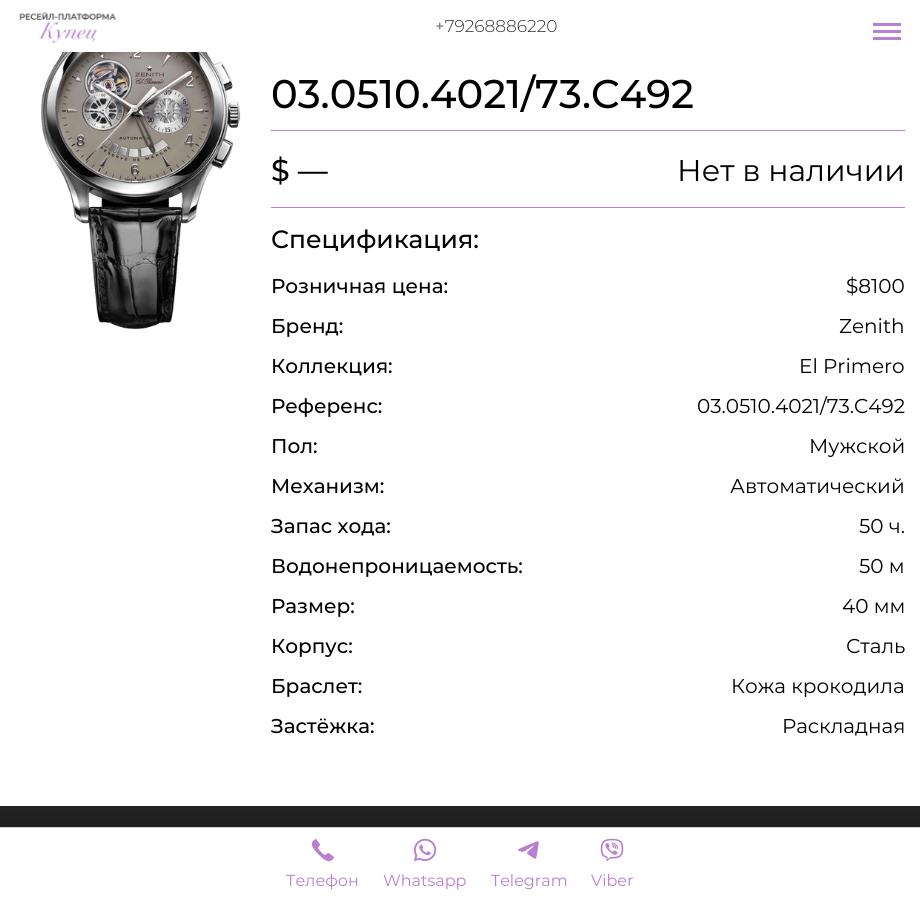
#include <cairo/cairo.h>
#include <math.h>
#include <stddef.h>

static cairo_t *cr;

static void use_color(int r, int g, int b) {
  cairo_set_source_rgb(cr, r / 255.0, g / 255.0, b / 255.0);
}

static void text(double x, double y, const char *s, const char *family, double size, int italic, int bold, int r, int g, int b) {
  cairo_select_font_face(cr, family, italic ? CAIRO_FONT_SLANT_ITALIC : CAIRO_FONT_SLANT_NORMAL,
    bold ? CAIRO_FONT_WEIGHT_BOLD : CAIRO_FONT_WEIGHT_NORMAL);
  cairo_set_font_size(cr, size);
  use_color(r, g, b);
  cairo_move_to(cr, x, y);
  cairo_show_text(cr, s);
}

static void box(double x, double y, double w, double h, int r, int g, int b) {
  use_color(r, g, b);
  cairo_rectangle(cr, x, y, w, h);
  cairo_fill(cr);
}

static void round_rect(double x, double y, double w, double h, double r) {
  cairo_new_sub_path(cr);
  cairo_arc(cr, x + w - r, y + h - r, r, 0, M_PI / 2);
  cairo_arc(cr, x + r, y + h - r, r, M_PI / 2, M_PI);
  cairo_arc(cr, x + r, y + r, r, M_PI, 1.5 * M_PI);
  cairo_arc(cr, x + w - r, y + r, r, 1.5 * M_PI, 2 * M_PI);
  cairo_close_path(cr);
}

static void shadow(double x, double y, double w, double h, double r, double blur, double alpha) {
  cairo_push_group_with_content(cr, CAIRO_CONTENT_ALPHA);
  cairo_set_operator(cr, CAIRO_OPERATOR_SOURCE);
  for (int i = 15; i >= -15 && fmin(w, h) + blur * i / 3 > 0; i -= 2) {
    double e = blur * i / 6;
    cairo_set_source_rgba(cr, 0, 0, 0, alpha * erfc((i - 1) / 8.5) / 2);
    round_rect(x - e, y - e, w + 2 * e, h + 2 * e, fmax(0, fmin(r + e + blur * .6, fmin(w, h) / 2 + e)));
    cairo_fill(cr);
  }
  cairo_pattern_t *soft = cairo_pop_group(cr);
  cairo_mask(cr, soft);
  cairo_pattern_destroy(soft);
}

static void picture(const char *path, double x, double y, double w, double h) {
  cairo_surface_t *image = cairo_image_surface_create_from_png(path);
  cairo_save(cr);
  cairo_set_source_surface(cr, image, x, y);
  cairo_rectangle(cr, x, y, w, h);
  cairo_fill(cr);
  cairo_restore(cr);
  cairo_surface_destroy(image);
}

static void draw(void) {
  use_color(255, 255, 255);
  cairo_paint(cr);
  picture("img_01.png", 19, 12, 97, 32);
  box(873, 30, 28, 3, 185, 128, 209);
  box(873, 23, 28, 3, 185, 128, 209);
  box(873, 37, 28, 3, 185, 128, 209);
  picture("img_02.png", 41, 52, 200, 278);
  box(271, 130, 634, 1, 185, 128, 209);
  box(271, 207, 634, 1, 185, 128, 209);
  box(0, 806, 920, 21, 34, 34, 34);
  use_color(0, 0, 0);
  shadow(0, 827, 920, 71, 0, 10, 0.2);
  box(0, 828, 920, 70, 255, 255, 255);
  box(0, 827, 920, 1, 211, 211, 211);
  picture("img_03.png", 311, 838, 24, 24);
  picture("img_04.png", 413, 838, 24, 24);
  picture("img_05.png", 517, 841, 22, 18);
  picture("img_06.png", 600, 838, 24, 24);
  text(435, 32, "+79268886220", "Montserrat Light", 17, 0, 0, 51, 51, 51);
  text(271, 108, "03.0510.4021/73.C492", "Montserrat Medium", 40, 0, 0, 0, 0, 0);
  text(271, 181, "$ —", "Montserrat Medium", 30, 0, 0, 0, 0, 0);
  text(677, 181, "Нет в наличии", "Montserrat", 30, 0, 0, 0, 0, 0);
  text(271, 248, "Спецификация:", "Montserrat Medium", 25, 0, 0, 0, 0, 0);
  text(271, 293, "Розничная цена:", "Montserrat Medium", 20, 0, 0, 0, 0, 0);
  text(846, 293, "$8100", "Montserrat", 20, 0, 0, 0, 0, 0);
  text(271, 333, "Бренд:", "Montserrat Medium", 20, 0, 0, 0, 0, 0);
  text(839, 333, "Zenith", "Montserrat", 20, 0, 0, 0, 0, 0);
  text(271, 373, "Коллекция:", "Montserrat Medium", 20, 0, 0, 0, 0, 0);
  text(799, 373, "El Primero", "Montserrat", 20, 0, 0, 0, 0, 0);
  text(271, 413, "Референс:", "Montserrat Medium", 20, 0, 0, 0, 0, 0);
  text(697, 413, "03.0510.4021/73.C492", "Montserrat", 20, 0, 0, 0, 0, 0);
  text(271, 453, "Пол:", "Montserrat Medium", 20, 0, 0, 0, 0, 0);
  text(809, 453, "Мужской", "Montserrat", 20, 0, 0, 0, 0, 0);
  text(271, 493, "Механизм:", "Montserrat Medium", 20, 0, 0, 0, 0, 0);
  text(730, 493, "Автоматический", "Montserrat", 20, 0, 0, 0, 0, 0);
  text(271, 533, "Запас хода:", "Montserrat Medium", 20, 0, 0, 0, 0, 0);
  text(859, 533, "50 ч.", "Montserrat", 20, 0, 0, 0, 0, 0);
  text(271, 573, "Водонепроницаемость:", "Montserrat Medium", 20, 0, 0, 0, 0, 0);
  text(859, 573, "50 м", "Montserrat", 20, 0, 0, 0, 0, 0);
  text(271, 613, "Размер:", "Montserrat Medium", 20, 0, 0, 0, 0, 0);
  text(842, 613, "40 мм", "Montserrat", 20, 0, 0, 0, 0, 0);
  text(271, 653, "Корпус:", "Montserrat Medium", 20, 0, 0, 0, 0, 0);
  text(846, 653, "Сталь", "Montserrat", 20, 0, 0, 0, 0, 0);
  text(271, 693, "Браслет:", "Montserrat Medium", 20, 0, 0, 0, 0, 0);
  text(731, 693, "Кожа крокодила", "Montserrat", 20, 0, 0, 0, 0, 0);
  text(271, 733, "Застёжка:", "Montserrat Medium", 20, 0, 0, 0, 0, 0);
  text(782, 733, "Раскладная", "Montserrat", 20, 0, 0, 0, 0, 0);
  text(286, 886, "Телефон", "Montserrat", 16, 0, 0, 185, 128, 209);
  text(383, 886, "Whatsapp", "Montserrat", 16, 0, 0, 185, 128, 209);
  text(491, 886, "Telegram", "Montserrat", 16, 0, 0, 185, 128, 209);
  text(591, 886, "Viber", "Montserrat", 16, 0, 0, 185, 128, 209);
}

int main(void) {
  cairo_surface_t *surface = cairo_image_surface_create(CAIRO_FORMAT_RGB24, 920, 898);
  cr = cairo_create(surface);
  cairo_font_options_t *options = cairo_font_options_create();
  cairo_font_options_set_hint_metrics(options, CAIRO_HINT_METRICS_OFF);
  cairo_font_options_set_hint_style(options, CAIRO_HINT_STYLE_NONE);
  cairo_set_font_options(cr, options);
  cairo_set_miter_limit(cr, 4);
  draw();
  cairo_surface_write_to_png(surface, "out.png");
  cairo_font_options_destroy(options);
  cairo_destroy(cr);
  cairo_surface_destroy(surface);
  return 0;
}
